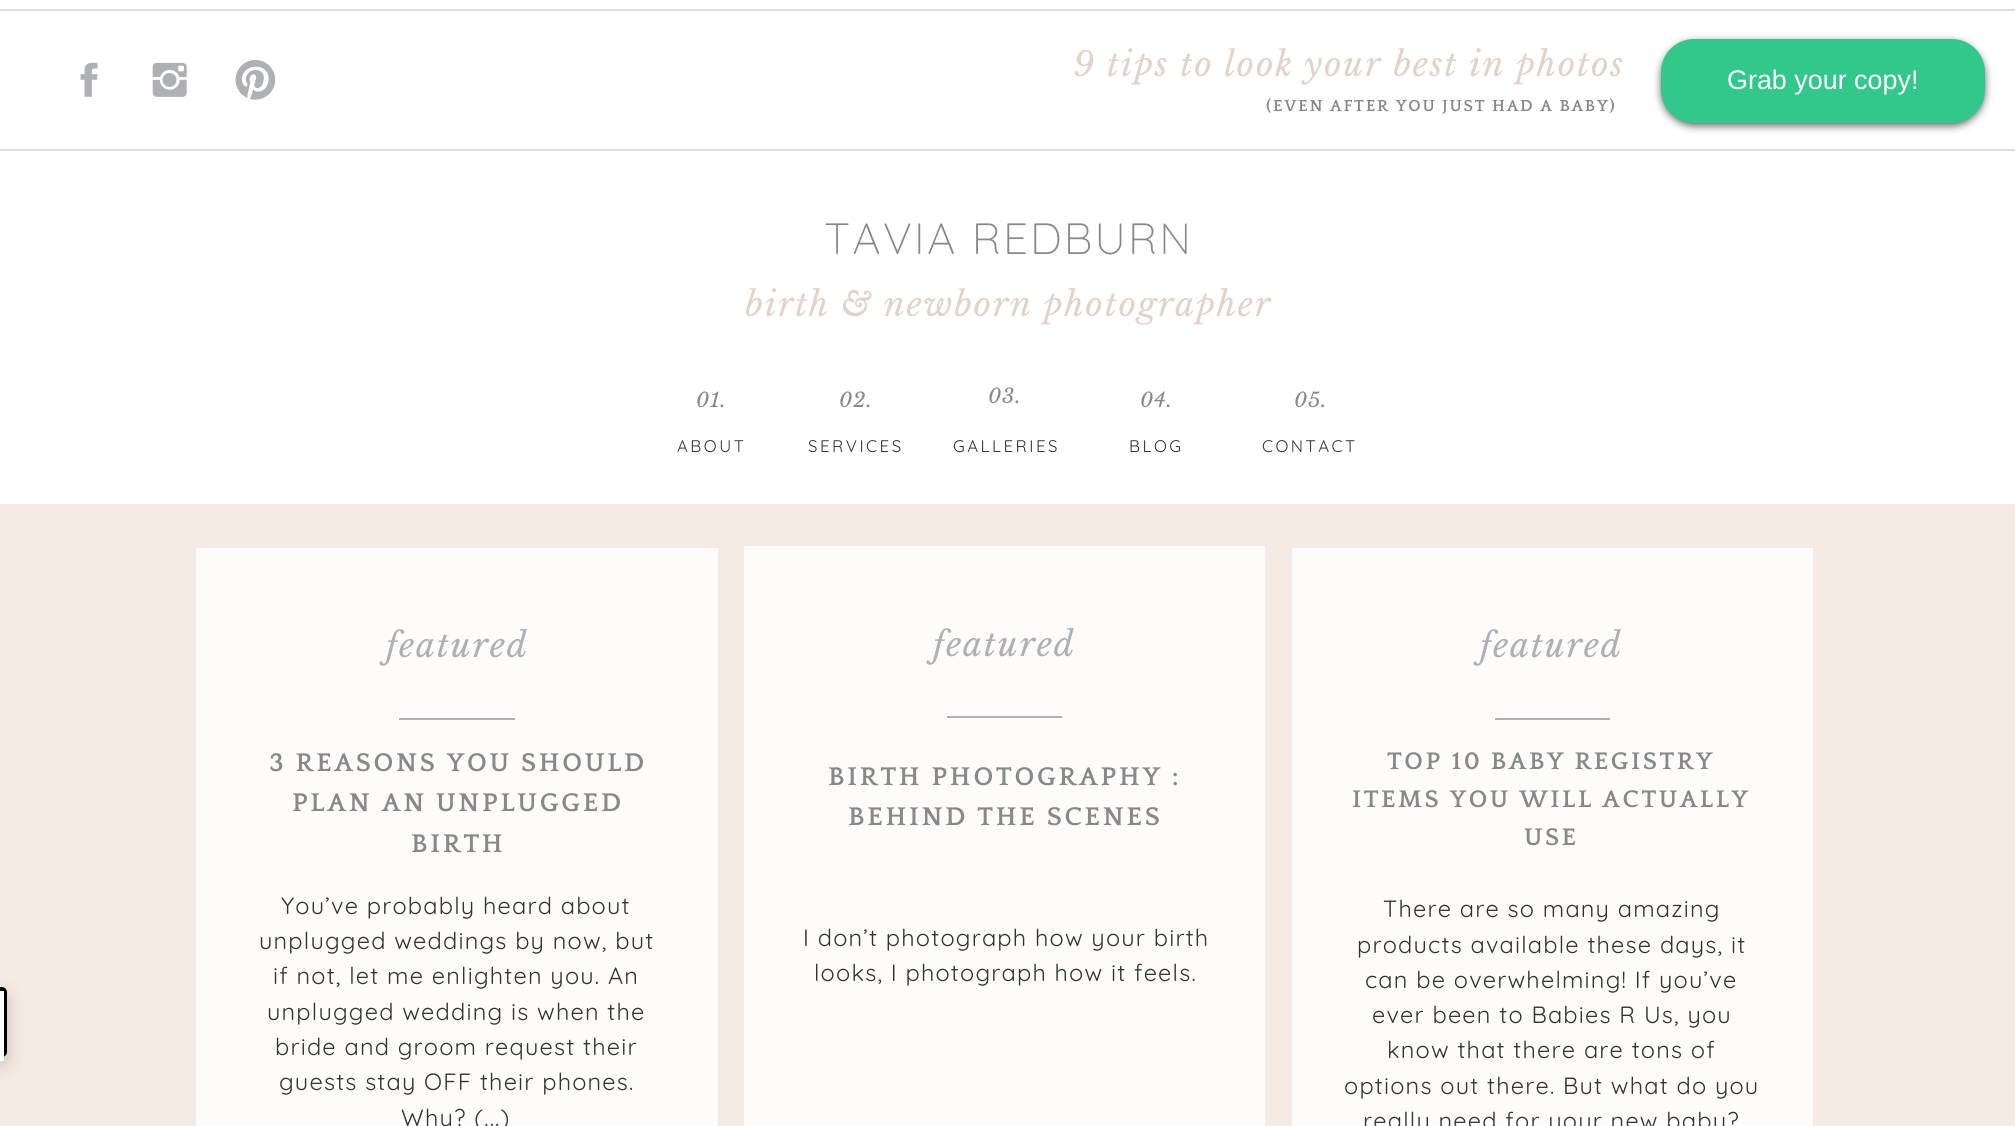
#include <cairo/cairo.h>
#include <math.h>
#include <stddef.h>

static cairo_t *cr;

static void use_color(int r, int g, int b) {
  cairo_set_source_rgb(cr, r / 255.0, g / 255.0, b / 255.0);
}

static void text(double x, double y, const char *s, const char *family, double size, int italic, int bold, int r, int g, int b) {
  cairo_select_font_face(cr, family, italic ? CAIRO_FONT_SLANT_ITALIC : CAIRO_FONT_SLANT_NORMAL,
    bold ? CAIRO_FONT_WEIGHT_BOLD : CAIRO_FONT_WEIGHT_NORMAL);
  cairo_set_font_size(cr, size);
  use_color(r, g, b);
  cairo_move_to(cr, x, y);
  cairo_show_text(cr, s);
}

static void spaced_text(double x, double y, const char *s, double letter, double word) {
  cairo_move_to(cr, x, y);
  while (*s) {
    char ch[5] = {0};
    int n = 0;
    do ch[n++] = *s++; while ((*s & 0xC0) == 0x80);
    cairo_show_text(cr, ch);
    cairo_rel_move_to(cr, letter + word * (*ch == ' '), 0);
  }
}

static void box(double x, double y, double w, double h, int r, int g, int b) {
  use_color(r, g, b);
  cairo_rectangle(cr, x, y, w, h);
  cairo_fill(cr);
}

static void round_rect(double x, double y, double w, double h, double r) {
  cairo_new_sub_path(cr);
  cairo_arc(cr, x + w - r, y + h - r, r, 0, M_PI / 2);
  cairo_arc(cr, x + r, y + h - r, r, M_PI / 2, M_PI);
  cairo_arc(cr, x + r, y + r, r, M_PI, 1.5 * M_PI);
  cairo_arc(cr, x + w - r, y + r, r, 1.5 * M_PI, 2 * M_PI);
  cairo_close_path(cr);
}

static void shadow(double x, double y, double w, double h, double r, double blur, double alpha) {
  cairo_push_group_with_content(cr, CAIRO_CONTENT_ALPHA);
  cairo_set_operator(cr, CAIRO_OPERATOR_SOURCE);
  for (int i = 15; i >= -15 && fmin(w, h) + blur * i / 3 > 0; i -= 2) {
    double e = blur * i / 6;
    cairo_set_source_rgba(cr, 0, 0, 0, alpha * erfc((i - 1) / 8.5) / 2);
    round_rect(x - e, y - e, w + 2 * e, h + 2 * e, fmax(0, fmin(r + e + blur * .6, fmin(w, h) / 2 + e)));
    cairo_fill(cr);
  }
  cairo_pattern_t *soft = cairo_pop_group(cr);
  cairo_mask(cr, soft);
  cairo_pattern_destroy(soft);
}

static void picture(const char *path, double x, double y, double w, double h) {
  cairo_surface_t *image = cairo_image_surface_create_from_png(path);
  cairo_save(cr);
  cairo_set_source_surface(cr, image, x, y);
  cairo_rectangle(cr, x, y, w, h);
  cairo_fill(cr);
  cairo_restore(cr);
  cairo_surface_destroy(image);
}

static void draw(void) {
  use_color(255, 255, 255);
  cairo_paint(cr);
  box(0, 504, 2015, 622, 244, 235, 228);
  use_color(0, 0, 0);
  shadow(-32, 994, 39, 70, 5, 9, 0.2);
  cairo_new_path(cr);
  cairo_move_to(cr, -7, 989);
  cairo_line_to(cr, 2, 989);
  cairo_curve_to(cr, 3.5, 989, 5, 990.5, 5, 992);
  cairo_line_to(cr, 5, 1052);
  cairo_curve_to(cr, 5, 1053.5, 3.5, 1055, 2, 1055);
  cairo_line_to(cr, -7, 1055);
  cairo_close_path(cr);
  use_color(0, 0, 0);
  cairo_set_line_width(cr, 4);
  cairo_stroke(cr);
  box(0, 991, 4, 70, 255, 255, 255);
  box(0, 9, 2015, 2, 219, 222, 227);
  picture("img_01.png", 80, 62, 18, 35);
  picture("img_02.png", 152, 62, 35, 35);
  picture("img_03.png", 235, 60, 41, 40);
  use_color(0, 0, 0);
  shadow(1661, 42, 324, 84, 33, 4, 0.6);
  use_color(50, 200, 140);
  round_rect(1662, 40, 322, 82, 32);
  cairo_fill_preserve(cr);
  cairo_set_line_width(cr, 2);
  cairo_stroke(cr);
  box(0, 149, 2015, 2, 219, 222, 227);
  box(196, 548, 522, 578, 253, 252, 251);
  box(744, 546, 521, 580, 253, 252, 251);
  box(1292, 548, 521, 578, 253, 252, 251);
  box(947, 716, 115, 2, 175, 176, 180);
  box(399, 718, 116, 2, 175, 176, 180);
  box(1495, 718, 115, 2, 175, 176, 180);
  cairo_select_font_face(cr, "Libre Baskerville", CAIRO_FONT_SLANT_ITALIC, CAIRO_FONT_WEIGHT_NORMAL);
  cairo_set_font_size(cr, 33.6);
  use_color(224, 211, 202);
  spaced_text(1073, 76, "9 tips to look your best in photos", 1.7, 0);
  text(1727, 89, "Grab your copy!", "Liberation Sans", 26.9, 0, 0, 255, 255, 255);
  cairo_select_font_face(cr, "Quattrocento", CAIRO_FONT_SLANT_NORMAL, CAIRO_FONT_WEIGHT_BOLD);
  cairo_set_font_size(cr, 16.8);
  use_color(136, 136, 136);
  spaced_text(1266, 111, "(EVEN AFTER YOU JUST HAD A BABY)", 1.7, 0);
  cairo_select_font_face(cr, "Quicksand Light", CAIRO_FONT_SLANT_NORMAL, CAIRO_FONT_WEIGHT_NORMAL);
  cairo_set_font_size(cr, 43.75);
  spaced_text(824, 254, "TAVIA REDBURN", 2.25, 0);
  cairo_select_font_face(cr, "Libre Baskerville", CAIRO_FONT_SLANT_ITALIC, CAIRO_FONT_WEIGHT_NORMAL);
  cairo_set_font_size(cr, 33.6);
  use_color(224, 211, 202);
  spaced_text(745, 316, "birth & newborn photographer", 1.7, 0);
  cairo_set_font_size(cr, 20);
  use_color(136, 136, 136);
  spaced_text(696, 407, "01.", 1, 0);
  spaced_text(839, 407, "02.", 1, 0);
  spaced_text(988, 403, "03.", 1, 0);
  spaced_text(1140, 407, "04.", 1, 0);
  spaced_text(1294, 407, "05.", 1, 0);
  cairo_select_font_face(cr, "Quicksand", CAIRO_FONT_SLANT_NORMAL, CAIRO_FONT_WEIGHT_NORMAL);
  cairo_set_font_size(cr, 16.8);
  use_color(51, 51, 51);
  spaced_text(677, 452, "ABOUT", 2.5, 0);
  spaced_text(808, 452, "SERVICES", 2.5, 0);
  spaced_text(953, 452, "GALLERIES", 2.5, 0);
  spaced_text(1129, 452, "BLOG", 2.5, 0);
  spaced_text(1262, 452, "CONTACT", 2.5, 0);
  cairo_select_font_face(cr, "Libre Baskerville", CAIRO_FONT_SLANT_ITALIC, CAIRO_FONT_WEIGHT_NORMAL);
  cairo_set_font_size(cr, 33.6);
  use_color(175, 176, 180);
  spaced_text(386, 657, "featured", 1.7, 0);
  spaced_text(933, 656, "featured", 1.7, 0);
  spaced_text(1480, 657, "featured", 1.7, 0);
  cairo_select_font_face(cr, "Quattrocento", CAIRO_FONT_SLANT_NORMAL, CAIRO_FONT_WEIGHT_BOLD);
  cairo_set_font_size(cr, 26.9);
  use_color(136, 136, 136);
  spaced_text(269, 771, "3 REASONS YOU SHOULD", 2.7, 0);
  spaced_text(292, 811, "PLAN AN UNPLUGGED", 2.7, 0);
  spaced_text(411, 852, "BIRTH", 2.7, 0);
  spaced_text(828, 785, "BIRTH PHOTOGRAPHY :", 2.7, 0);
  spaced_text(848, 825, "BEHIND THE SCENES", 2.7, 0);
  cairo_set_font_size(cr, 25.25);
  spaced_text(1387, 769, "TOP 10 BABY REGISTRY", 2.5, 0);
  spaced_text(1352, 807, "ITEMS YOU WILL ACTUALLY", 2.5, 0);
  spaced_text(1524, 845, "USE", 2.5, 0);
  cairo_select_font_face(cr, "Quicksand", CAIRO_FONT_SLANT_NORMAL, CAIRO_FONT_WEIGHT_NORMAL);
  cairo_set_font_size(cr, 23.5);
  use_color(51, 51, 51);
  spaced_text(281, 914, "You’ve probably heard about", 1.2, 0);
  spaced_text(259, 949, "unplugged weddings by now, but", 1.2, 0);
  spaced_text(273, 984, "if not, let me enlighten you. An", 1.2, 0);
  spaced_text(267, 1020, "unplugged wedding is when the", 1.2, 0);
  spaced_text(275, 1055, "bride and groom request their", 1.2, 0);
  spaced_text(279, 1090, "guests stay OFF their phones.", 1.2, 0);
  spaced_text(401, 1126, "Why? (...)", 1.2, 0);
  spaced_text(803, 946, "I don’t photograph how your birth", 1.2, 0);
  spaced_text(814, 981, "looks, I photograph how it feels.", 1.2, 0);
  spaced_text(1383, 917, "There are so many amazing", 1.2, 0);
  spaced_text(1357, 953, "products available these days, it", 1.2, 0);
  spaced_text(1365, 988, "can be overwhelming! If you’ve", 1.2, 0);
  spaced_text(1372, 1023, "ever been to Babies R Us, you", 1.2, 0);
  spaced_text(1387, 1058, "know that there are tons of", 1.2, 0);
  spaced_text(1344, 1094, "options out there. But what do you", 1.2, 0);
  spaced_text(1363, 1129, "really need for your new baby?", 1.2, 0);
}

int main(void) {
  cairo_surface_t *surface = cairo_image_surface_create(CAIRO_FORMAT_RGB24, 2015, 1126);
  cr = cairo_create(surface);
  cairo_font_options_t *options = cairo_font_options_create();
  cairo_font_options_set_hint_metrics(options, CAIRO_HINT_METRICS_OFF);
  cairo_font_options_set_hint_style(options, CAIRO_HINT_STYLE_NONE);
  cairo_set_font_options(cr, options);
  cairo_set_miter_limit(cr, 4);
  draw();
  cairo_surface_write_to_png(surface, "out.png");
  cairo_font_options_destroy(options);
  cairo_destroy(cr);
  cairo_surface_destroy(surface);
  return 0;
}
